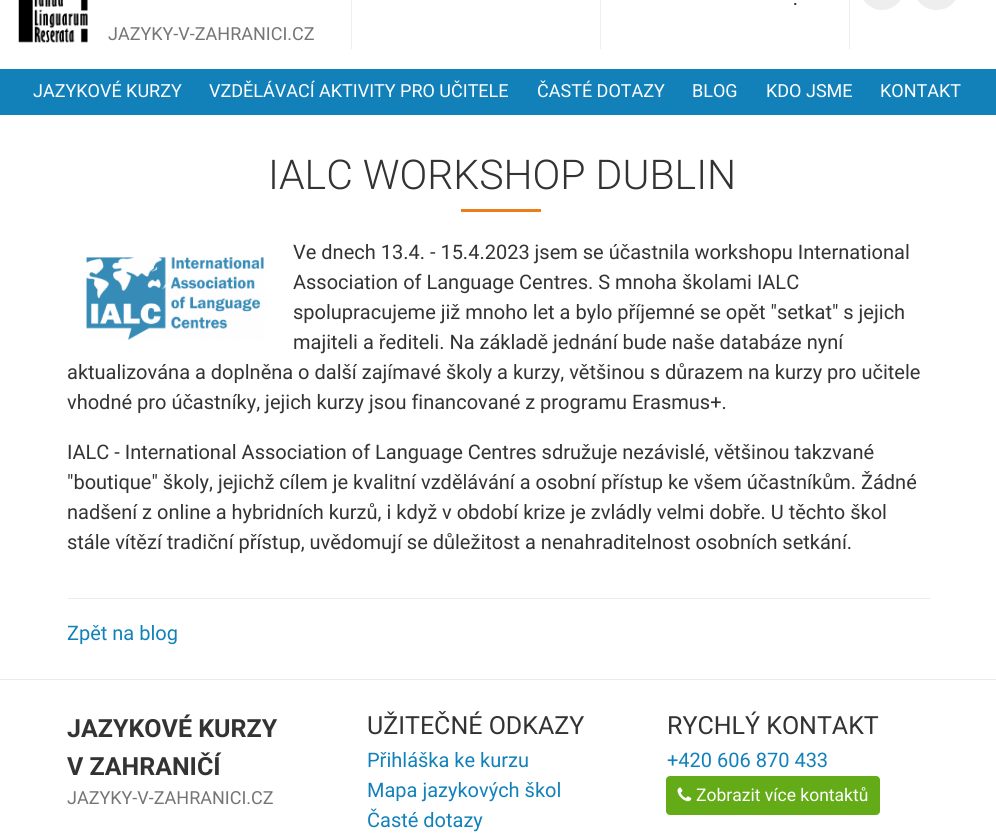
#include <cairo/cairo.h>
#include <math.h>
#include <stddef.h>

static cairo_t *cr;

static void use_color(int r, int g, int b) {
  cairo_set_source_rgb(cr, r / 255.0, g / 255.0, b / 255.0);
}

static void text(double x, double y, const char *s, const char *family, double size, int italic, int bold, int r, int g, int b) {
  cairo_select_font_face(cr, family, italic ? CAIRO_FONT_SLANT_ITALIC : CAIRO_FONT_SLANT_NORMAL,
    bold ? CAIRO_FONT_WEIGHT_BOLD : CAIRO_FONT_WEIGHT_NORMAL);
  cairo_set_font_size(cr, size);
  use_color(r, g, b);
  cairo_move_to(cr, x, y);
  cairo_show_text(cr, s);
}

static void box(double x, double y, double w, double h, int r, int g, int b) {
  use_color(r, g, b);
  cairo_rectangle(cr, x, y, w, h);
  cairo_fill(cr);
}

static void round_rect(double x, double y, double w, double h, double r) {
  cairo_new_sub_path(cr);
  cairo_arc(cr, x + w - r, y + h - r, r, 0, M_PI / 2);
  cairo_arc(cr, x + r, y + h - r, r, M_PI / 2, M_PI);
  cairo_arc(cr, x + r, y + r, r, M_PI, 1.5 * M_PI);
  cairo_arc(cr, x + w - r, y + r, r, 1.5 * M_PI, 2 * M_PI);
  cairo_close_path(cr);
}

static void picture(const char *path, double x, double y, double w, double h) {
  cairo_surface_t *image = cairo_image_surface_create_from_png(path);
  cairo_save(cr);
  cairo_set_source_surface(cr, image, x, y);
  cairo_rectangle(cr, x, y, w, h);
  cairo_fill(cr);
  cairo_restore(cr);
  cairo_surface_destroy(image);
}

static void draw(void) {
  use_color(255, 255, 255);
  cairo_paint(cr);
  box(351, 0, 1, 49, 238, 238, 238);
  box(600, 0, 1, 49, 238, 238, 238);
  box(849, 0, 1, 49, 238, 238, 238);
  round_rect(860, -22, 44, 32, 22);
  cairo_fill(cr);
  round_rect(914, -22, 45, 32, 22);
  cairo_fill(cr);
  picture("img_01.png", 18, 0, 70, 43);
  box(0, 69, 996, 46, 18, 129, 186);
  box(461, 209, 80, 3, 235, 125, 26);
  picture("img_02.png", 86, 257, 178, 84);
  box(68, 598, 862, 1, 235, 235, 235);
  box(0, 679, 996, 1, 234, 234, 234);
  use_color(99, 172, 23);
  round_rect(666.5, 776.5, 213, 38, 3.5);
  cairo_fill_preserve(cr);
  cairo_set_line_width(cr, 1);
  cairo_stroke(cr);
  picture("img_03.png", 677, 787, 15, 15);
  text(793, 5, ".", "Roboto Medium", 17, 0, 0, 51, 51, 51);
  text(108, 40, "JAZYKY-V-ZAHRANICI.CZ", "Roboto", 18, 0, 0, 117, 117, 117);
  text(33, 97, "JAZYKOVÉ KURZY", "Roboto", 18, 0, 0, 255, 255, 255);
  text(209, 97, "VZDĚLÁVACÍ AKTIVITY PRO UČITELE", "Roboto", 18, 0, 0, 255, 255, 255);
  text(537, 97, "ČASTÉ DOTAZY", "Roboto", 18, 0, 0, 255, 255, 255);
  text(692, 97, "BLOG", "Roboto", 18, 0, 0, 255, 255, 255);
  text(766, 97, "KDO JSME", "Roboto", 18, 0, 0, 255, 255, 255);
  text(880, 97, "KONTAKT", "Roboto", 18, 0, 0, 255, 255, 255);
  text(268, 189, "IALC WORKSHOP DUBLIN", "Roboto Light", 41, 0, 0, 51, 51, 51);
  text(293, 259, "Ve dnech 13.4. - 15.4.2023 jsem se účastnila workshopu International", "Roboto", 20, 0, 0, 51, 51, 51);
  text(293, 289, "Association of Language Centres. S mnoha školami IALC", "Roboto", 20, 0, 0, 51, 51, 51);
  text(293, 319, "spolupracujeme již mnoho let a bylo příjemné se opět \"setkat\" s jejich", "Roboto", 20, 0, 0, 51, 51, 51);
  text(293, 349, "majiteli a řediteli. Na základě jednání bude naše databáze nyní", "Roboto", 20, 0, 0, 51, 51, 51);
  text(67, 379, "aktualizována a doplněna o další zajímavé školy a kurzy, většinou s důrazem na kurzy pro učitele", "Roboto", 20, 0, 0, 51, 51, 51);
  text(67, 409, "vhodné pro účastníky, jejich kurzy jsou financované z programu Erasmus+.", "Roboto", 20, 0, 0, 51, 51, 51);
  text(67, 459, "IALC - International Association of Language Centres sdružuje nezávislé, většinou takzvané", "Roboto", 20, 0, 0, 51, 51, 51);
  text(67, 489, "\"boutique\" školy, jejichž cílem je kvalitní vzdělávání a osobní přístup ke všem účastníkům. Žádné", "Roboto", 20, 0, 0, 51, 51, 51);
  text(67, 519, "nadšení z online a hybridních kurzů, i když v období krize je zvládly velmi dobře. U těchto škol", "Roboto", 20, 0, 0, 51, 51, 51);
  text(67, 549, "stále vítězí tradiční přístup, uvědomují se důležitost a nenahraditelnost osobních setkání.", "Roboto", 20, 0, 0, 51, 51, 51);
  text(67, 640, "Zpět na blog", "Roboto", 20, 0, 0, 18, 129, 186);
  text(67, 737, "JAZYKOVÉ KURZY", "Roboto", 25, 0, 1, 51, 51, 51);
  text(67, 775, "V ZAHRANIČÍ", "Roboto", 25, 0, 1, 51, 51, 51);
  text(67, 804, "JAZYKY-V-ZAHRANICI.CZ", "Roboto", 18, 0, 0, 117, 117, 117);
  text(367, 734, "UŽITEČNÉ ODKAZY", "Roboto", 25, 0, 0, 51, 51, 51);
  text(367, 767, "Přihláška ke kurzu", "Roboto", 20, 0, 0, 18, 129, 186);
  text(367, 797, "Mapa jazykových škol", "Roboto", 20, 0, 0, 18, 129, 186);
  text(367, 827, "Časté dotazy", "Roboto", 20, 0, 0, 18, 129, 186);
  text(667, 734, "RYCHLÝ KONTAKT", "Roboto", 25, 0, 0, 51, 51, 51);
  text(667, 767, "+420 606 870 433", "Roboto", 20, 0, 0, 18, 129, 186);
  text(696, 801, "Zobrazit více kontaktů", "Roboto", 17.5, 0, 0, 255, 255, 255);
}

int main(void) {
  cairo_surface_t *surface = cairo_image_surface_create(CAIRO_FORMAT_RGB24, 996, 834);
  cr = cairo_create(surface);
  cairo_font_options_t *options = cairo_font_options_create();
  cairo_font_options_set_hint_metrics(options, CAIRO_HINT_METRICS_OFF);
  cairo_font_options_set_hint_style(options, CAIRO_HINT_STYLE_NONE);
  cairo_set_font_options(cr, options);
  cairo_set_miter_limit(cr, 4);
  draw();
  cairo_surface_write_to_png(surface, "out.png");
  cairo_font_options_destroy(options);
  cairo_destroy(cr);
  cairo_surface_destroy(surface);
  return 0;
}
